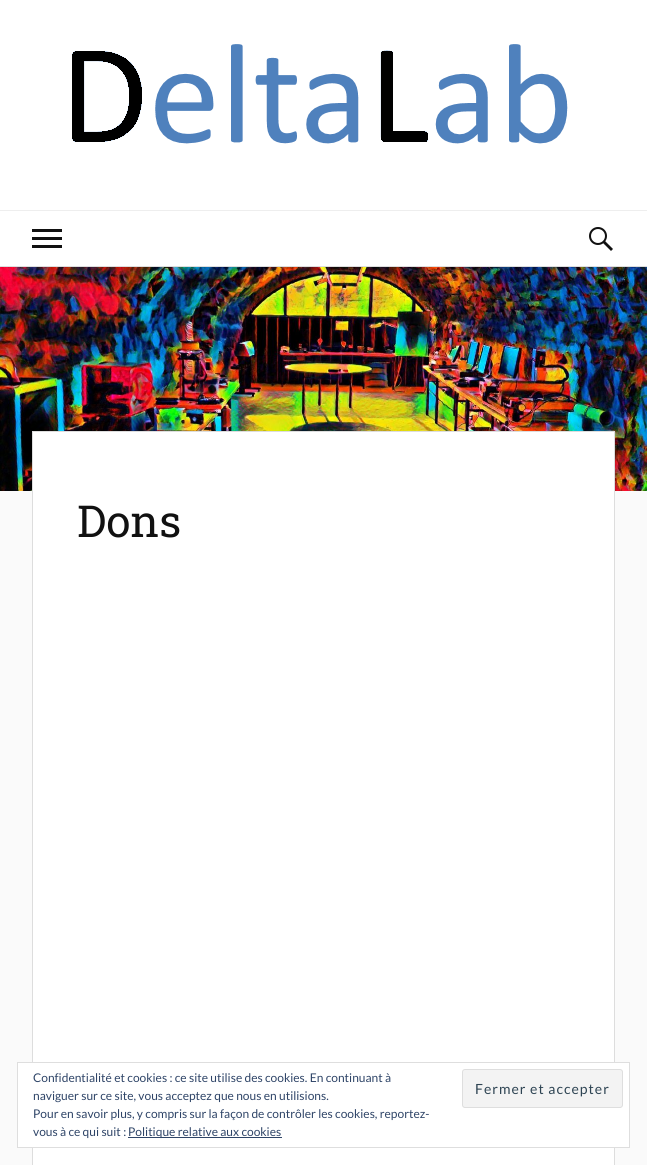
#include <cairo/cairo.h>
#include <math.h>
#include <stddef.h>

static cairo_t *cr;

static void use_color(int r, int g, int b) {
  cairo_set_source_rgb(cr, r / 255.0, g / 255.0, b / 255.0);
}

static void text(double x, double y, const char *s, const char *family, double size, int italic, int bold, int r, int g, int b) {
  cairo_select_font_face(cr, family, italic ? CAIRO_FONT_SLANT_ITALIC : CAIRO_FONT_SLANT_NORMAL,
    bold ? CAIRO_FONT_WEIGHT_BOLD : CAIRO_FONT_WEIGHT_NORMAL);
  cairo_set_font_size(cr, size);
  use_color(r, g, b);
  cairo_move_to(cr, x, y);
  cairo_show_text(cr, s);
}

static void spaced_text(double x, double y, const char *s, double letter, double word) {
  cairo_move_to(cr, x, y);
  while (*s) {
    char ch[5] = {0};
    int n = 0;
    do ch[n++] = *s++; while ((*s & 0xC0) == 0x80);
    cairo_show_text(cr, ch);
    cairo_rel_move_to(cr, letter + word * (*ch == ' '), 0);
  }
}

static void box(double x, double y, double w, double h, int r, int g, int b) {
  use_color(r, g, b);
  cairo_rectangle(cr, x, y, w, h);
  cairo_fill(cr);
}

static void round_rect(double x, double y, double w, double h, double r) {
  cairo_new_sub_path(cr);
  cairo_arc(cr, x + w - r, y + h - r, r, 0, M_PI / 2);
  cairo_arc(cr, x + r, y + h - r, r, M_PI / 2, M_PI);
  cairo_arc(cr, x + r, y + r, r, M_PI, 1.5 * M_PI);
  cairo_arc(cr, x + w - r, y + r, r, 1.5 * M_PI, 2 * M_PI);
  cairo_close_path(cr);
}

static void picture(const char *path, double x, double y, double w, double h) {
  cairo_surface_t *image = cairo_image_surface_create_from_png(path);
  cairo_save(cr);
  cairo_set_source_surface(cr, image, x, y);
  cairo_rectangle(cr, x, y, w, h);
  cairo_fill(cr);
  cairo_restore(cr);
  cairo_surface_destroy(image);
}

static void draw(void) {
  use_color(250, 250, 250);
  cairo_paint(cr);
  box(0, 0, 647, 210, 255, 255, 255);
  picture("img_01.png", 72, 44, 496, 100);
  box(0, 211, 647, 55, 255, 255, 255);
  box(0, 210, 647, 1, 238, 238, 238);
  box(32, 229, 30, 3, 17, 17, 17);
  box(32, 237, 30, 3, 17, 17, 17);
  box(32, 245, 30, 3, 17, 17, 17);
  picture("img_02.png", 589, 227, 24, 24);
  box(0, 266, 647, 1, 221, 221, 221);
  picture("img_03.png", 0, 267, 647, 224);
  use_color(255, 255, 255);
  cairo_rectangle(cr, 32.5, 431.5, 582, 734);
  cairo_fill_preserve(cr);
  use_color(221, 221, 221);
  cairo_set_line_width(cr, 1);
  cairo_stroke(cr);
  use_color(255, 255, 255);
  cairo_rectangle(cr, 17.5, 1062.5, 612, 85);
  cairo_fill_preserve(cr);
  use_color(222, 222, 222);
  cairo_stroke(cr);
  use_color(243, 243, 243);
  round_rect(462.5, 1069.5, 160, 38, 2.5);
  cairo_fill_preserve(cr);
  use_color(222, 222, 222);
  cairo_stroke(cr);
  box(128, 1137, 154, 1, 46, 68, 103);
  text(77, 537, "Dons", "Roboto Slab", 44, 0, 0, 17, 17, 17);
  text(33, 1082, "Confidentialité et cookies : ce site utilise des cookies. En continuant à", "Lato", 12, 0, 0, 46, 68, 103);
  text(33, 1100, "naviguer sur ce site, vous acceptez que nous en utilisions.", "Lato", 12, 0, 0, 46, 68, 103);
  cairo_set_font_size(cr, 14);
  use_color(46, 68, 83);
  spaced_text(475, 1094, "Fermer et accepter", 1, 0);
  text(33, 1118, "Pour en savoir plus, y compris sur la façon de contrôler les cookies, reportez-", "Lato", 12, 0, 0, 46, 68, 103);
  text(33, 1136, "vous à ce qui suit :", "Lato", 12, 0, 0, 46, 68, 103);
  text(128, 1136, "Politique relative aux cookies", "Lato", 12, 0, 0, 46, 68, 103);
}

int main(void) {
  cairo_surface_t *surface = cairo_image_surface_create(CAIRO_FORMAT_RGB24, 647, 1165);
  cr = cairo_create(surface);
  cairo_font_options_t *options = cairo_font_options_create();
  cairo_font_options_set_hint_metrics(options, CAIRO_HINT_METRICS_OFF);
  cairo_font_options_set_hint_style(options, CAIRO_HINT_STYLE_NONE);
  cairo_set_font_options(cr, options);
  cairo_set_miter_limit(cr, 4);
  draw();
  cairo_surface_write_to_png(surface, "out.png");
  cairo_font_options_destroy(options);
  cairo_destroy(cr);
  cairo_surface_destroy(surface);
  return 0;
}
